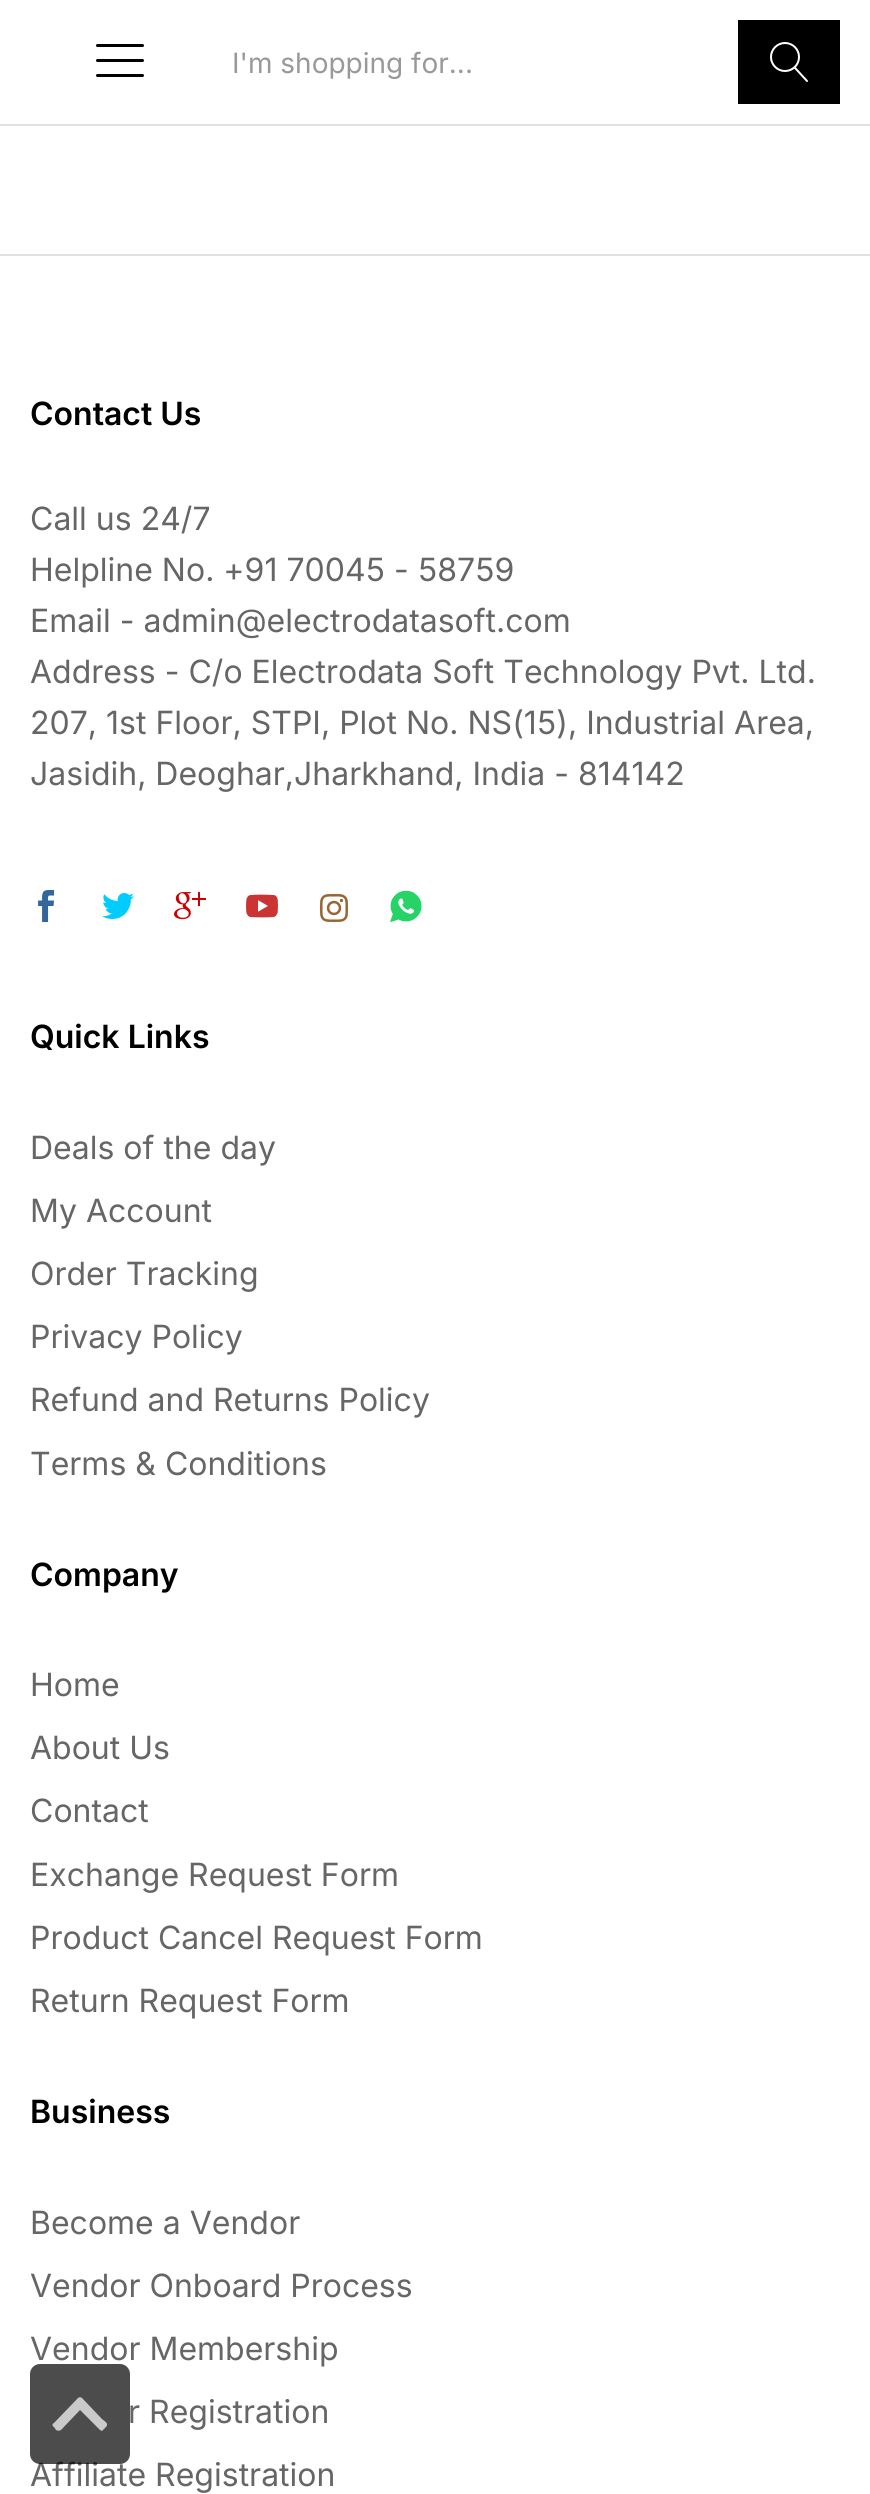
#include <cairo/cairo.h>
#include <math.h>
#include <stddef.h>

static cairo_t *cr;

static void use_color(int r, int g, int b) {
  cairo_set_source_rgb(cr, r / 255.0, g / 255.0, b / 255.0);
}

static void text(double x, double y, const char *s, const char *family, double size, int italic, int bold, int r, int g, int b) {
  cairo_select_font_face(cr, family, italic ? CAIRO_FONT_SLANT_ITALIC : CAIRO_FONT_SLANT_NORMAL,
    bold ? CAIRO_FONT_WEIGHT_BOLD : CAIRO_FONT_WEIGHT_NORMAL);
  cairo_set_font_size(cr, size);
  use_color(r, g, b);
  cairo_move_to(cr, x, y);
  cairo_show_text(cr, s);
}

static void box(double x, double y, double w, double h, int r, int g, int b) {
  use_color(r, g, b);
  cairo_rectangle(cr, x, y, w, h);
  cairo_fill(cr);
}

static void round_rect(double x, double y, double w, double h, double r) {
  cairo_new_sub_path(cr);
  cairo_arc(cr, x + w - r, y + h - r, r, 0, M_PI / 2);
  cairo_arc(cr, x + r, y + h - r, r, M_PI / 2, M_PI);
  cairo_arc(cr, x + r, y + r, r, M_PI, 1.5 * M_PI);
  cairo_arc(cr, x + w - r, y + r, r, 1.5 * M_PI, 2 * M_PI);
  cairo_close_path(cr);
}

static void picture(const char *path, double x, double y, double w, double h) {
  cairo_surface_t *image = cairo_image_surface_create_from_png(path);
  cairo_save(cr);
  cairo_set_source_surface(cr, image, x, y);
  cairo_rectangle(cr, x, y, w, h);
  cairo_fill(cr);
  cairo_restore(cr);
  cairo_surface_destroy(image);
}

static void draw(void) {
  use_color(255, 255, 255);
  cairo_paint(cr);
  box(0, 124, 870, 2, 225, 225, 225);
  picture("img_01.png", 96, 44, 48, 33);
  box(738, 20, 102, 84, 0, 0, 0);
  picture("img_02.png", 770, 42, 38, 40);
  box(0, 254, 870, 2, 225, 225, 225);
  picture("img_03.png", 38, 890, 17, 32);
  picture("img_04.png", 102, 893, 32, 26);
  picture("img_05.png", 174, 892, 32, 28);
  picture("img_06.png", 246, 894, 32, 24);
  picture("img_07.png", 320, 894, 28, 28);
  picture("img_08.png", 390, 890, 32, 33);
  text(232, 73, "I'm shopping for...", "Inter", 28, 0, 0, 153, 153, 153);
  text(30, 425, "Contact Us", "Inter SemiBold", 32, 0, 0, 0, 0, 0);
  text(30, 530, "Call us 24/7", "Inter", 32, 0, 0, 102, 102, 102);
  text(30, 581, "Helpline No. +91 70045 - 58759", "Inter", 32, 0, 0, 102, 102, 102);
  text(30, 632, "Email - admin@electrodatasoft.com", "Inter", 32, 0, 0, 102, 102, 102);
  text(30, 683, "Address - C/o Electrodata Soft Technology Pvt. Ltd.", "Inter", 32, 0, 0, 102, 102, 102);
  text(30, 734, "207, 1st Floor, STPI, Plot No. NS(15), Industrial Area,", "Inter", 32, 0, 0, 102, 102, 102);
  text(30, 785, "Jasidih, Deoghar,Jharkhand, India - 814142", "Inter", 32, 0, 0, 102, 102, 102);
  text(30, 1048, "Quick Links", "Inter SemiBold", 32, 0, 0, 0, 0, 0);
  text(30, 1159, "Deals of the day", "Inter", 32, 0, 0, 102, 102, 102);
  text(30, 1222, "My Account", "Inter", 32, 0, 0, 102, 102, 102);
  text(30, 1285, "Order Tracking", "Inter", 32, 0, 0, 102, 102, 102);
  text(30, 1348, "Privacy Policy", "Inter", 32, 0, 0, 102, 102, 102);
  text(30, 1411, "Refund and Returns Policy", "Inter", 32, 0, 0, 102, 102, 102);
  text(30, 1475, "Terms & Conditions", "Inter", 32, 0, 0, 102, 102, 102);
  text(30, 1586, "Company", "Inter SemiBold", 32, 0, 0, 0, 0, 0);
  text(30, 1696, "Home", "Inter", 32, 0, 0, 102, 102, 102);
  text(30, 1759, "About Us", "Inter", 32, 0, 0, 102, 102, 102);
  text(30, 1822, "Contact", "Inter", 32, 0, 0, 102, 102, 102);
  text(30, 1886, "Exchange Request Form", "Inter", 32, 0, 0, 102, 102, 102);
  text(30, 1949, "Product Cancel Request Form", "Inter", 32, 0, 0, 102, 102, 102);
  text(30, 2012, "Return Request Form", "Inter", 32, 0, 0, 102, 102, 102);
  text(30, 2123, "Business", "Inter SemiBold", 32, 0, 0, 0, 0, 0);
  text(30, 2234, "Become a Vendor", "Inter", 32, 0, 0, 102, 102, 102);
  text(30, 2297, "Vendor Onboard Process", "Inter", 32, 0, 0, 102, 102, 102);
  text(30, 2360, "Vendor Membership", "Inter", 32, 0, 0, 102, 102, 102);
  text(128, 2423, "r Registration", "Inter", 32, 0, 0, 102, 102, 102);
  text(30, 2486, "Affiliate Registration", "Inter", 32, 0, 0, 102, 102, 102);
  cairo_set_source_rgba(cr, 0, 0, 0, 0.7);
  round_rect(30, 2364, 100, 100, 10);
  cairo_fill(cr);
  cairo_set_source_rgba(cr, 1, 1, 1, 0.7);
  cairo_new_path(cr);
  cairo_move_to(cr, 82, 2398);
  cairo_line_to(cr, 102, 2419);
  cairo_curve_to(cr, 107, 2423, 109, 2424, 105, 2428);
  cairo_line_to(cr, 102, 2431);
  cairo_line_to(cr, 100, 2430);
  cairo_line_to(cr, 80, 2410);
  cairo_line_to(cr, 61, 2430);
  cairo_curve_to(cr, 59, 2431, 58, 2431, 56, 2430);
  cairo_line_to(cr, 54, 2427);
  cairo_curve_to(cr, 52, 2426, 52, 2424, 54, 2423);
  cairo_line_to(cr, 78, 2398);
  cairo_curve_to(cr, 79, 2397, 81, 2397, 82, 2398);
  cairo_close_path(cr);
  cairo_fill(cr);
}

int main(void) {
  cairo_surface_t *surface = cairo_image_surface_create(CAIRO_FORMAT_RGB24, 870, 2494);
  cr = cairo_create(surface);
  cairo_font_options_t *options = cairo_font_options_create();
  cairo_font_options_set_hint_metrics(options, CAIRO_HINT_METRICS_OFF);
  cairo_font_options_set_hint_style(options, CAIRO_HINT_STYLE_NONE);
  cairo_set_font_options(cr, options);
  cairo_set_miter_limit(cr, 4);
  draw();
  cairo_surface_write_to_png(surface, "out.png");
  cairo_font_options_destroy(options);
  cairo_destroy(cr);
  cairo_surface_destroy(surface);
  return 0;
}
